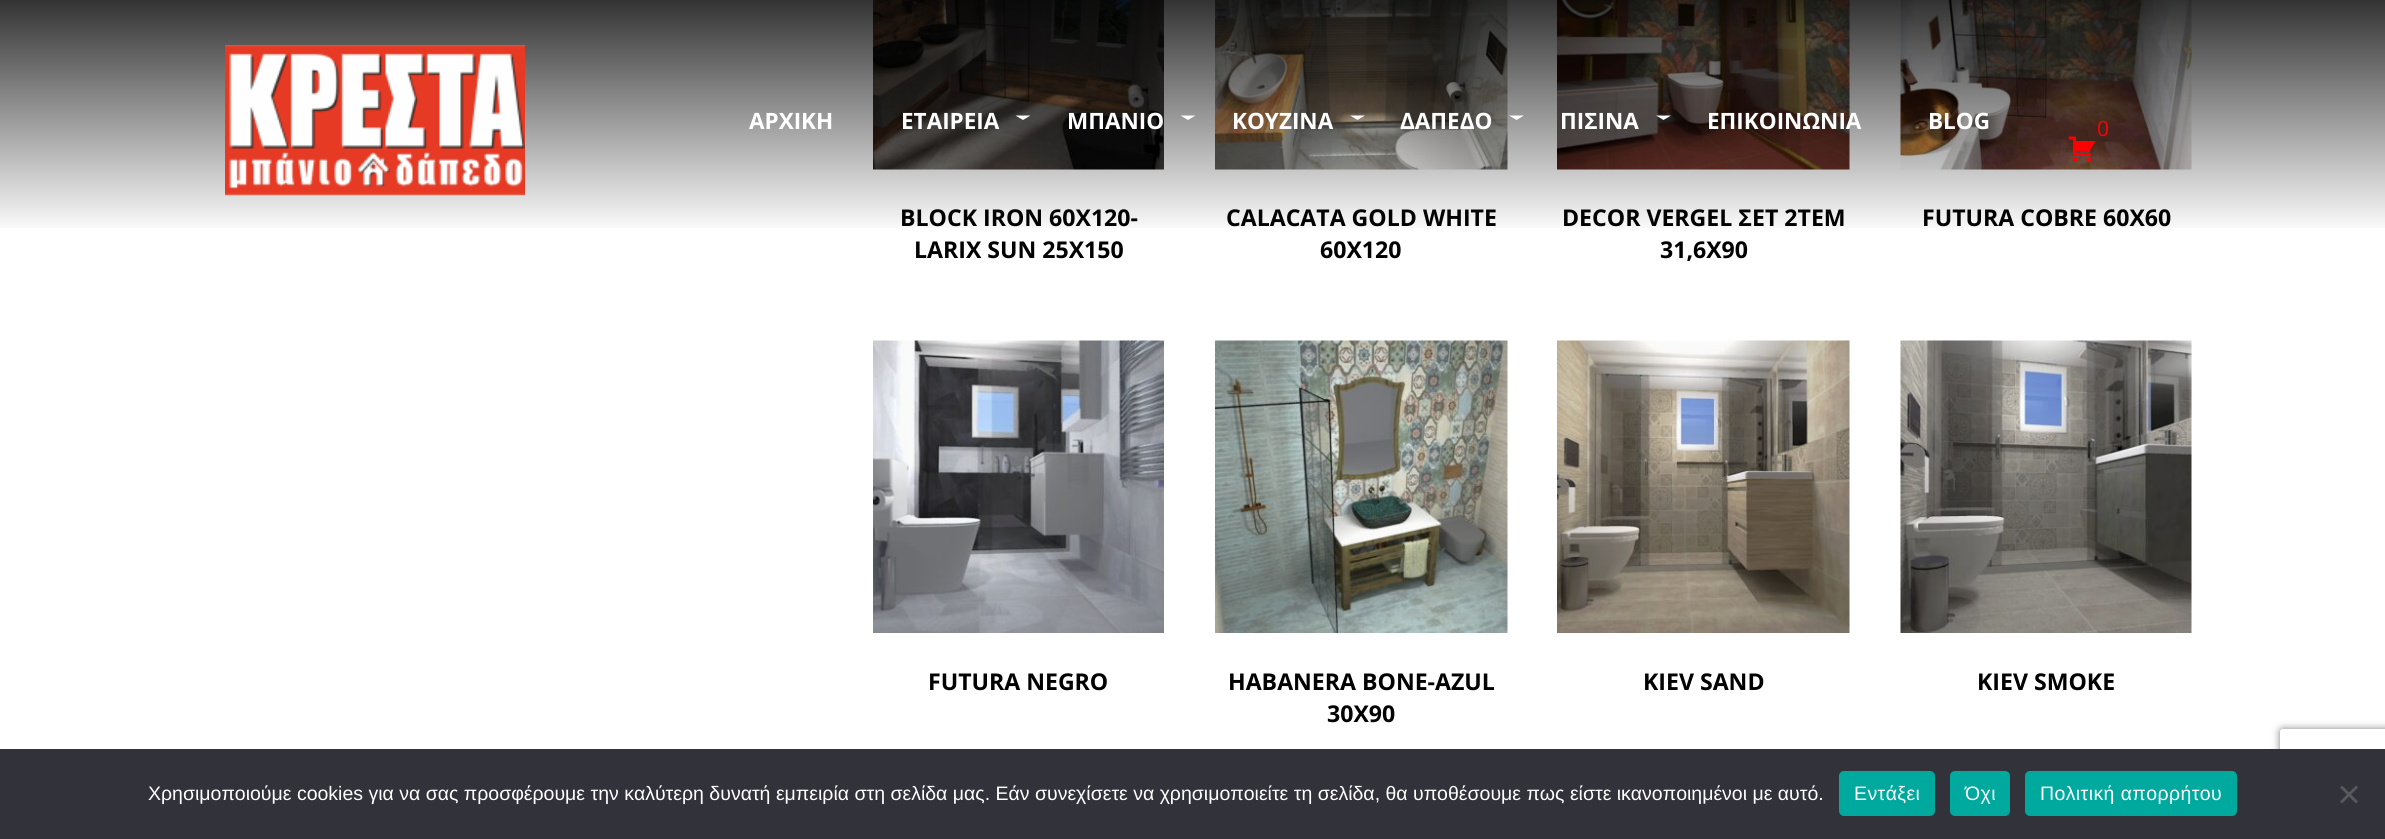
#include <cairo/cairo.h>
#include <math.h>
#include <stddef.h>

static cairo_t *cr;

static void use_color(int r, int g, int b) {
  cairo_set_source_rgb(cr, r / 255.0, g / 255.0, b / 255.0);
}

static void text(double x, double y, const char *s, const char *family, double size, int italic, int bold, int r, int g, int b) {
  cairo_select_font_face(cr, family, italic ? CAIRO_FONT_SLANT_ITALIC : CAIRO_FONT_SLANT_NORMAL,
    bold ? CAIRO_FONT_WEIGHT_BOLD : CAIRO_FONT_WEIGHT_NORMAL);
  cairo_set_font_size(cr, size);
  use_color(r, g, b);
  cairo_move_to(cr, x, y);
  cairo_show_text(cr, s);
}

static void spaced_text(double x, double y, const char *s, double letter, double word) {
  cairo_move_to(cr, x, y);
  while (*s) {
    char ch[5] = {0};
    int n = 0;
    do ch[n++] = *s++; while ((*s & 0xC0) == 0x80);
    cairo_show_text(cr, ch);
    cairo_rel_move_to(cr, letter + word * (*ch == ' '), 0);
  }
}

static void box(double x, double y, double w, double h, int r, int g, int b) {
  use_color(r, g, b);
  cairo_rectangle(cr, x, y, w, h);
  cairo_fill(cr);
}

static void round_rect(double x, double y, double w, double h, double r) {
  cairo_new_sub_path(cr);
  cairo_arc(cr, x + w - r, y + h - r, r, 0, M_PI / 2);
  cairo_arc(cr, x + r, y + h - r, r, M_PI / 2, M_PI);
  cairo_arc(cr, x + r, y + r, r, M_PI, 1.5 * M_PI);
  cairo_arc(cr, x + w - r, y + r, r, 1.5 * M_PI, 2 * M_PI);
  cairo_close_path(cr);
}

static void shadow(double x, double y, double w, double h, double r, double blur, double alpha) {
  cairo_push_group_with_content(cr, CAIRO_CONTENT_ALPHA);
  cairo_set_operator(cr, CAIRO_OPERATOR_SOURCE);
  for (int i = 15; i >= -15 && fmin(w, h) + blur * i / 3 > 0; i -= 2) {
    double e = blur * i / 6;
    cairo_set_source_rgba(cr, 0, 0, 0, alpha * erfc((i - 1) / 8.5) / 2);
    round_rect(x - e, y - e, w + 2 * e, h + 2 * e, fmax(0, fmin(r + e + blur * .6, fmin(w, h) / 2 + e)));
    cairo_fill(cr);
  }
  cairo_pattern_t *soft = cairo_pop_group(cr);
  cairo_mask(cr, soft);
  cairo_pattern_destroy(soft);
}

static void picture(const char *path, double x, double y, double w, double h) {
  cairo_surface_t *image = cairo_image_surface_create_from_png(path);
  cairo_save(cr);
  cairo_set_source_surface(cr, image, x, y);
  cairo_rectangle(cr, x, y, w, h);
  cairo_fill(cr);
  cairo_restore(cr);
  cairo_surface_destroy(image);
}

static void draw(void) {
  cairo_pattern_t *gradient;
  use_color(255, 255, 255);
  cairo_paint(cr);
  picture("img_03.png", 873, 0, 291, 170);
  picture("img_04.png", 1215, 0, 293, 170);
  picture("img_05.png", 1557, 0, 293, 170);
  picture("img_06.png", 1900, 0, 292, 170);
  picture("img_07.png", 873, 340, 291, 293);
  picture("img_08.png", 1215, 340, 293, 293);
  picture("img_09.png", 1557, 340, 293, 293);
  picture("img_10.png", 1900, 340, 292, 293);
  cairo_save(cr);
  cairo_set_fill_rule(cr, CAIRO_FILL_RULE_EVEN_ODD);
  cairo_new_path(cr);
  cairo_move_to(cr, 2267, 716);
  cairo_line_to(cr, 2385, 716);
  cairo_line_to(cr, 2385, 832);
  cairo_line_to(cr, 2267, 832);
  cairo_close_path(cr);
  cairo_move_to(cr, 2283, 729);
  cairo_line_to(cr, 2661, 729);
  cairo_curve_to(cr, 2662.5, 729, 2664, 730.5, 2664, 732);
  cairo_line_to(cr, 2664, 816);
  cairo_curve_to(cr, 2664, 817.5, 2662.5, 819, 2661, 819);
  cairo_line_to(cr, 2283, 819);
  cairo_curve_to(cr, 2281.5, 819, 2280, 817.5, 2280, 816);
  cairo_line_to(cr, 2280, 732);
  cairo_curve_to(cr, 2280, 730.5, 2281.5, 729, 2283, 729);
  cairo_close_path(cr);
  cairo_clip(cr);
  use_color(128, 128, 128);
  shadow(2280, 729, 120, 90, 3, 4, 1);
  cairo_restore(cr);
  box(0, 749, 2385, 90, 50, 50, 58);
  use_color(0, 169, 157);
  round_rect(1839, 771, 96, 45, 5);
  cairo_fill(cr);
  round_rect(1950, 771, 60, 45, 5);
  cairo_fill(cr);
  round_rect(2025, 771, 212, 45, 5);
  cairo_fill(cr);
  use_color(89, 89, 93);
  cairo_new_path(cr);
  cairo_move_to(cr, 2356, 785.5);
  cairo_line_to(cr, 2358, 787.5);
  cairo_line_to(cr, 2342, 803.5);
  cairo_line_to(cr, 2340, 801.5);
  cairo_close_path(cr);
  cairo_fill(cr);
  cairo_new_path(cr);
  cairo_move_to(cr, 2340, 787.5);
  cairo_line_to(cr, 2342, 785.5);
  cairo_line_to(cr, 2358, 801.5);
  cairo_line_to(cr, 2356, 803.5);
  cairo_close_path(cr);
  cairo_fill(cr);
  text(900, 226, "BLOCK IRON 60X120-", "Open Sans", 23.1, 0, 1, 0, 0, 0);
  text(914, 258, "LARIX SUN 25X150", "Open Sans", 23.1, 0, 1, 0, 0, 0);
  text(1226, 226, "CALACATA GOLD WHITE", "Open Sans", 23.1, 0, 1, 0, 0, 0);
  text(1320, 258, "60X120", "Open Sans", 23.1, 0, 1, 0, 0, 0);
  text(1562, 226, "DECOR VERGEL ΣΕΤ 2ΤΕΜ", "Open Sans", 23.1, 0, 1, 0, 0, 0);
  text(1660, 258, "31,6Χ90", "Open Sans", 23.1, 0, 1, 0, 0, 0);
  text(1922, 226, "FUTURA COBRE 60X60", "Open Sans", 23.1, 0, 1, 0, 0, 0);
  gradient = cairo_pattern_create_linear(1193, 0, 1193, 242);
  cairo_pattern_add_color_stop_rgba(gradient, 0, 0, 0, 0, 0.8);
  cairo_pattern_add_color_stop_rgba(gradient, 0.97, 0, 0, 0, 0);
  cairo_set_source(cr, gradient);
  cairo_pattern_destroy(gradient);
  cairo_rectangle(cr, 0, 0, 2385, 228);
  cairo_fill(cr);
  use_color(255, 255, 255);
  cairo_new_path(cr);
  cairo_move_to(cr, 1656, 115.5);
  cairo_line_to(cr, 1671, 115.5);
  cairo_line_to(cr, 1663.5, 120);
  cairo_close_path(cr);
  cairo_fill(cr);
  text(1560, 129, "ΠΙΣΙΝΑ", "Open Sans", 22.5, 0, 1, 255, 255, 255);
  cairo_new_path(cr);
  cairo_move_to(cr, 1509, 115.5);
  cairo_line_to(cr, 1524, 115.5);
  cairo_line_to(cr, 1516.5, 120);
  cairo_close_path(cr);
  cairo_fill(cr);
  text(1400, 129, "ΔΑΠΕΔΟ", "Open Sans", 22.5, 0, 1, 255, 255, 255);
  cairo_new_path(cr);
  cairo_move_to(cr, 1350, 115.5);
  cairo_line_to(cr, 1365, 115.5);
  cairo_line_to(cr, 1357.5, 120);
  cairo_close_path(cr);
  cairo_fill(cr);
  text(1232, 129, "ΚΟΥΖΙΝΑ", "Open Sans", 22.5, 0, 1, 255, 255, 255);
  cairo_new_path(cr);
  cairo_move_to(cr, 1180.5, 115.5);
  cairo_line_to(cr, 1195.5, 115.5);
  cairo_line_to(cr, 1188, 120);
  cairo_close_path(cr);
  cairo_fill(cr);
  text(1067, 129, "ΜΠΑΝΙΟ", "Open Sans", 22.5, 0, 1, 255, 255, 255);
  cairo_new_path(cr);
  cairo_move_to(cr, 1015.5, 115.5);
  cairo_line_to(cr, 1030.5, 115.5);
  cairo_line_to(cr, 1023, 120);
  cairo_close_path(cr);
  cairo_fill(cr);
  text(901, 129, "ΕΤΑΙΡΕΙΑ", "Open Sans", 22.5, 0, 1, 255, 255, 255);
  text(2097, 136, "0", "Open Sans", 21, 0, 0, 255, 0, 0);
  picture("img_02.png", 2068, 136, 28, 26);
  text(1928, 129, "BLOG", "Open Sans", 22.5, 0, 1, 255, 255, 255);
  text(1707, 129, "ΕΠΙΚΟΙΝΩΝΙΑ", "Open Sans", 22.5, 0, 1, 255, 255, 255);
  text(749, 129, "ΑΡΧΙΚΗ", "Open Sans", 22.5, 0, 1, 255, 255, 255);
  picture("img_01.png", 225, 45, 300, 151);
  text(928, 690, "FUTURA NEGRO", "Open Sans", 23.1, 0, 1, 0, 0, 0);
  text(1228, 690, "HABANERA BONE-AZUL", "Open Sans", 23.1, 0, 1, 0, 0, 0);
  text(1327, 722, "30X90", "Open Sans", 23.1, 0, 1, 0, 0, 0);
  text(1643, 690, "KIEV SAND", "Open Sans", 23.1, 0, 1, 0, 0, 0);
  text(1977, 690, "KIEV SMOKE", "Open Sans", 23.1, 0, 1, 0, 0, 0);
  text(148, 800, "Χρησιμοποιούμε cookies για να σας προσφέρουμε την καλύτερη δυνατή εμπειρία στη σελίδα μας. Εάν συνεχίσετε να χρησιμοποιείτε τη σελίδα, θα υποθέσουμε πως είστε ικανοποιημένοι με αυτό.", "Liberation Sans", 19.5, 0, 0, 255, 255, 255);
  spaced_text(1854, 800, "Εντάξει", 0.4, 0);
  spaced_text(1965, 800, "Όχι", 0.4, 0);
  spaced_text(2040, 800, "Πολιτική απορρήτου", 0.4, 0);
}

int main(void) {
  cairo_surface_t *surface = cairo_image_surface_create(CAIRO_FORMAT_RGB24, 2385, 839);
  cr = cairo_create(surface);
  cairo_font_options_t *options = cairo_font_options_create();
  cairo_font_options_set_hint_metrics(options, CAIRO_HINT_METRICS_OFF);
  cairo_font_options_set_hint_style(options, CAIRO_HINT_STYLE_NONE);
  cairo_set_font_options(cr, options);
  cairo_set_miter_limit(cr, 4);
  draw();
  cairo_surface_write_to_png(surface, "out.png");
  cairo_font_options_destroy(options);
  cairo_destroy(cr);
  cairo_surface_destroy(surface);
  return 0;
}
